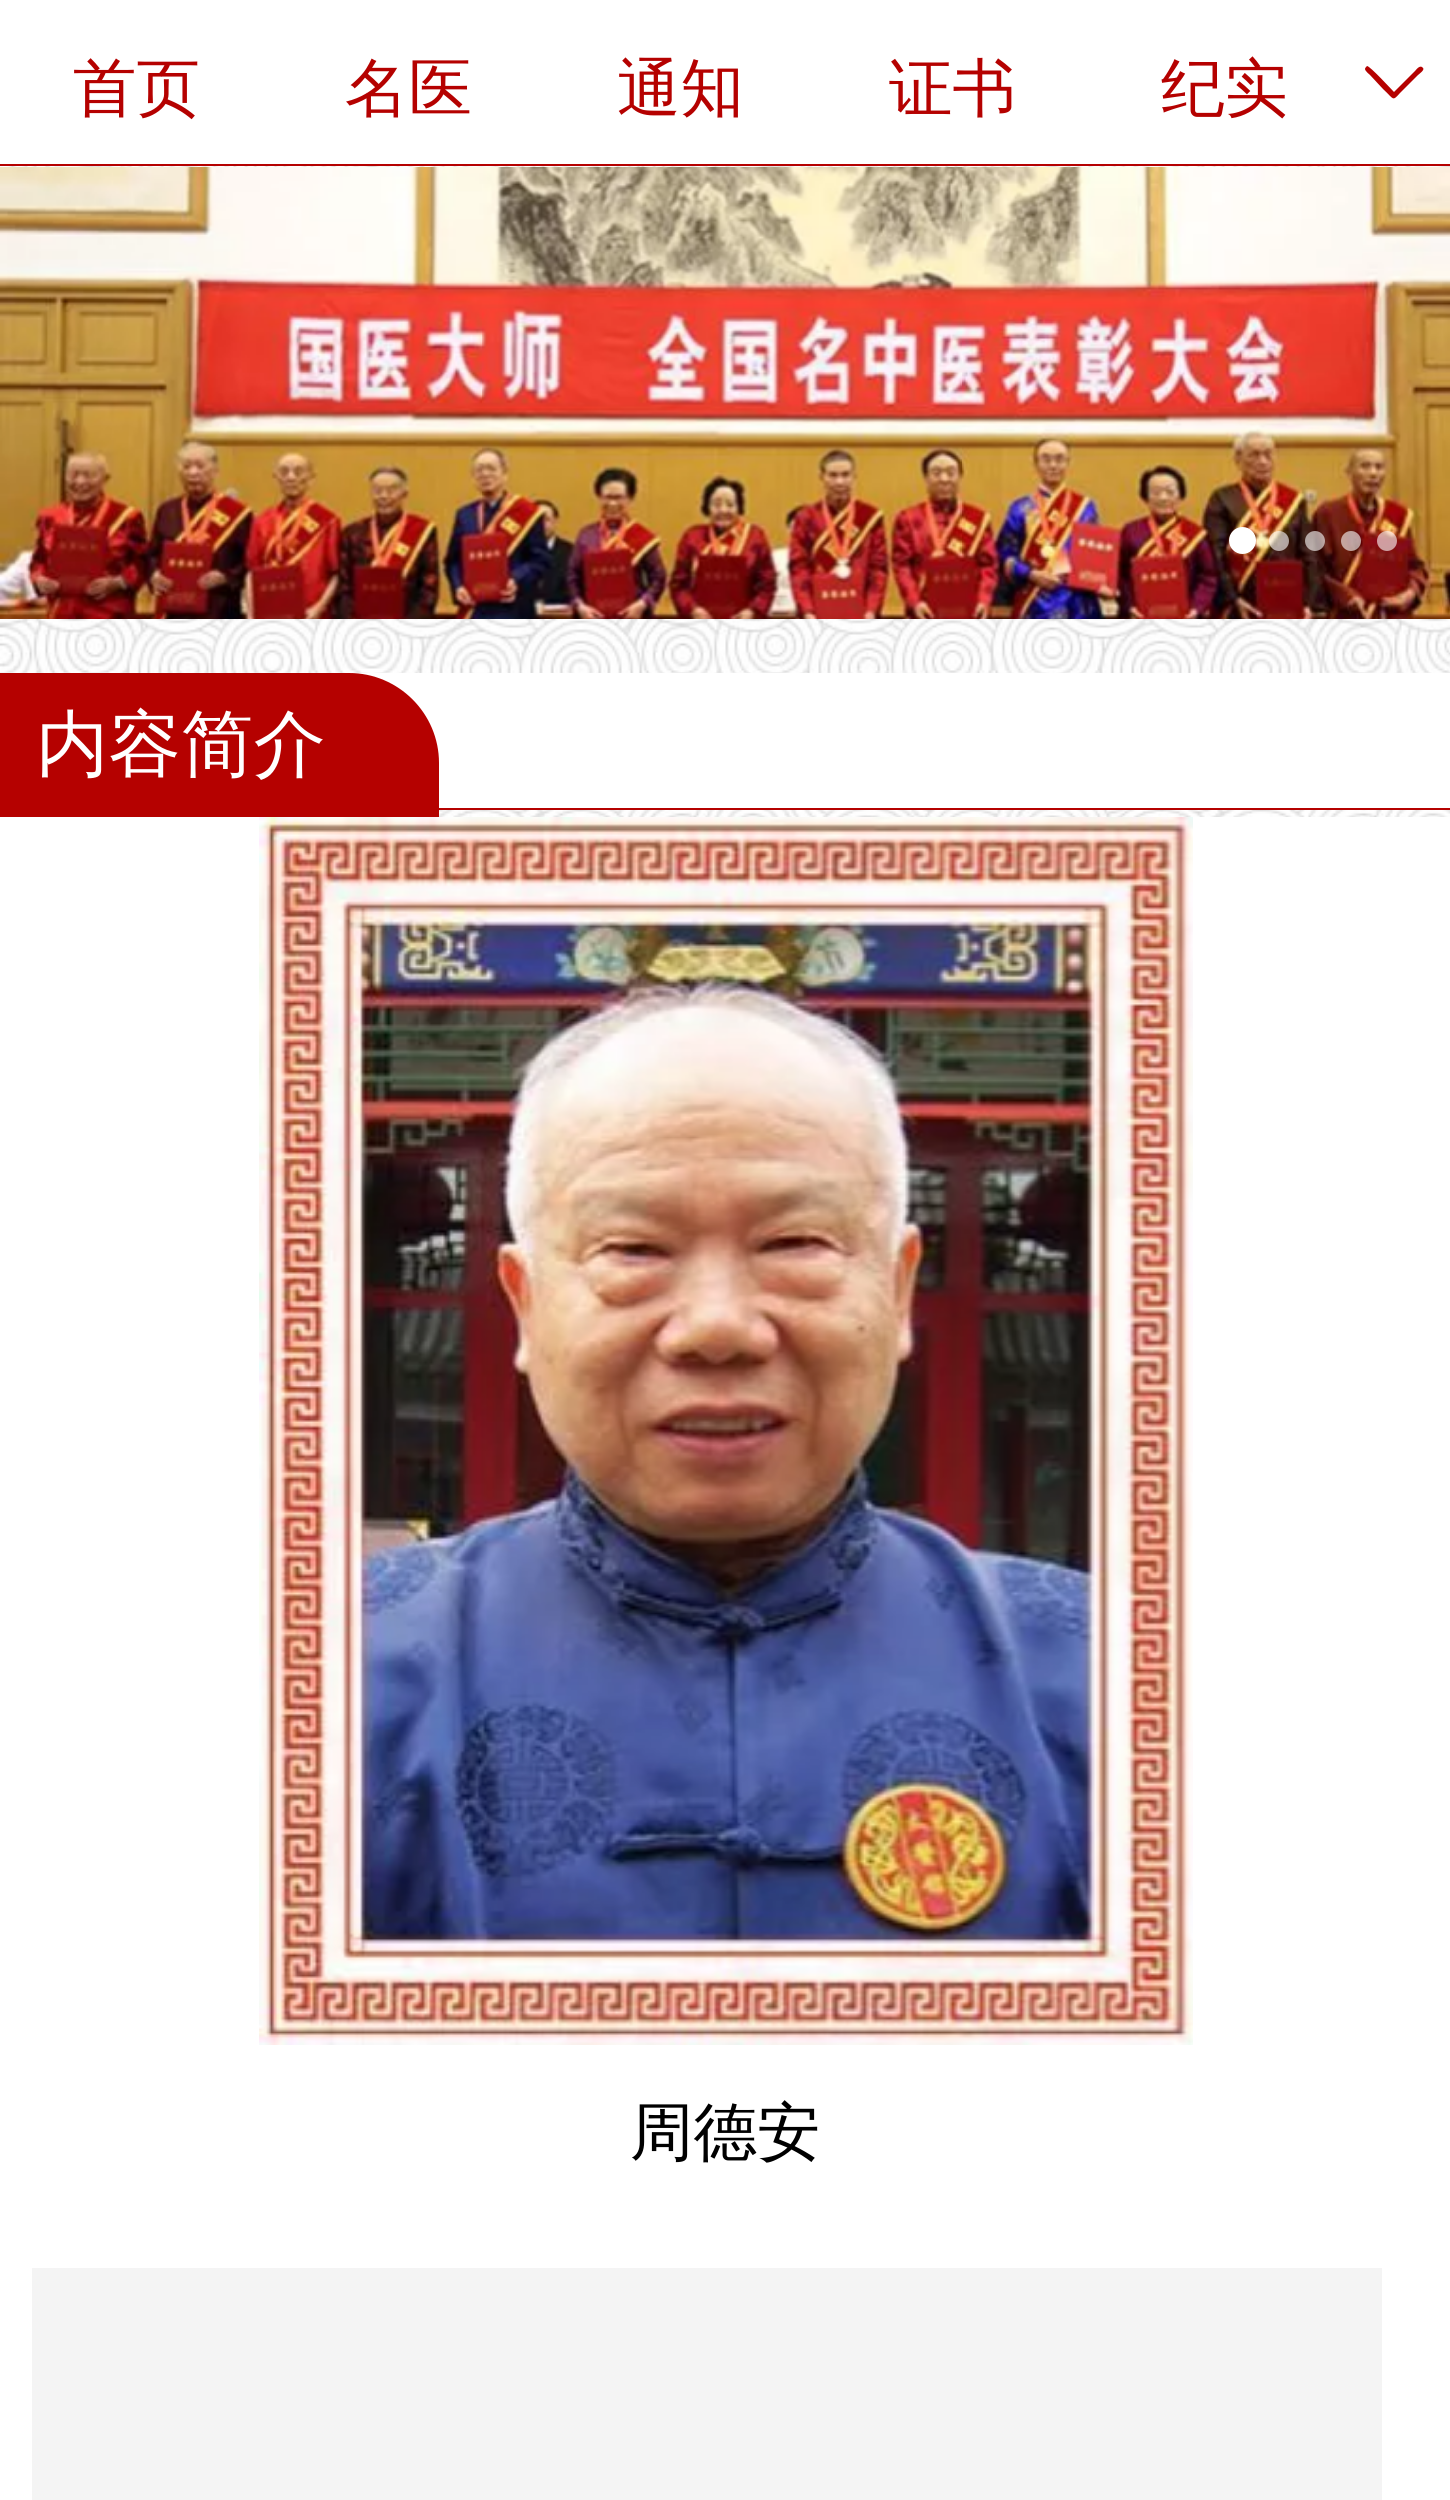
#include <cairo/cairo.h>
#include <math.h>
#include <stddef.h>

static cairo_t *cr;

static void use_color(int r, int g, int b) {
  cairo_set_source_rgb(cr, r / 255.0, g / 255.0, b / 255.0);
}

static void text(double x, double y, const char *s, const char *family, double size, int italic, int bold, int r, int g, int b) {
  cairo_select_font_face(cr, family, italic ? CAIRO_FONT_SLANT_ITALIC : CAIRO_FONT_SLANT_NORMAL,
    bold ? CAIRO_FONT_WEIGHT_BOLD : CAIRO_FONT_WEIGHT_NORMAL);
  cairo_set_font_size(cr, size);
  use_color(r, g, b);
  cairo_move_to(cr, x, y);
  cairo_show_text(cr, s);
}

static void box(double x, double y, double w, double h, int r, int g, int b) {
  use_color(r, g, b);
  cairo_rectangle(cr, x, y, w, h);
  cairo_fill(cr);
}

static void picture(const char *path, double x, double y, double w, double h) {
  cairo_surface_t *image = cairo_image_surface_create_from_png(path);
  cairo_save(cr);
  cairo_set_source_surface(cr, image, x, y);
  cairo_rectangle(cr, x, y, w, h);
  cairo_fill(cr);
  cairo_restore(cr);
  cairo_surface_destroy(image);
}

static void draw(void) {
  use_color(255, 255, 255);
  cairo_paint(cr);
  box(0, 164, 1450, 2, 181, 1, 0);
  cairo_new_path(cr);
  cairo_move_to(cr, 1365, 69);
  cairo_curve_to(cr, 1365, 68, 1366, 67, 1367, 66);
  cairo_curve_to(cr, 1370, 66, 1391, 89, 1394, 92);
  cairo_line_to(cr, 1415, 71);
  cairo_curve_to(cr, 1416, 70, 1420, 64, 1423, 68);
  cairo_curve_to(cr, 1425, 70, 1419, 74, 1418, 75);
  cairo_line_to(cr, 1400, 93);
  cairo_curve_to(cr, 1392, 102, 1394, 99, 1383, 89);
  cairo_line_to(cr, 1370, 75);
  cairo_curve_to(cr, 1370, 75, 1365, 71, 1365, 69);
  cairo_close_path(cr);
  cairo_fill(cr);
  picture("img_01.png", 0, 166, 1450, 651);
  picture("img_02.png", 0, 167, 1450, 452);
  use_color(255, 255, 255);
  cairo_arc(cr, 1242.5, 540.5, 13.5, 0, 2 * M_PI);
  cairo_fill(cr);
  cairo_set_source_rgba(cr, 1, 1, 1, 0.6);
  cairo_arc(cr, 1279, 541, 10, 0, 2 * M_PI);
  cairo_fill(cr);
  cairo_arc(cr, 1315, 541, 10, 0, 2 * M_PI);
  cairo_fill(cr);
  cairo_arc(cr, 1351, 541, 10, 0, 2 * M_PI);
  cairo_fill(cr);
  cairo_arc(cr, 1387, 541, 10, 0, 2 * M_PI);
  cairo_fill(cr);
  box(350, 673, 1100, 135, 255, 255, 255);
  box(439, 808, 1011, 2, 181, 1, 0);
  cairo_new_path(cr);
  cairo_move_to(cr, 0, 673);
  cairo_line_to(cr, 349, 673);
  cairo_curve_to(cr, 398.5, 673, 439, 713.5, 439, 763);
  cairo_line_to(cr, 439, 817);
  cairo_line_to(cr, 0, 817);
  cairo_close_path(cr);
  cairo_fill(cr);
  picture("img_03.png", 259, 817, 934, 1228);
  box(32, 2268, 1350, 232, 244, 244, 244);
  text(73, 110, "首页", "WenQuanYi Zen Hei Medium", 63.5, 0, 0, 181, 1, 0);
  text(345, 110, "名医", "WenQuanYi Zen Hei Medium", 63.5, 0, 0, 181, 1, 0);
  text(617, 110, "通知", "WenQuanYi Zen Hei Medium", 63.5, 0, 0, 181, 1, 0);
  text(889, 110, "证书", "WenQuanYi Zen Hei Medium", 63.5, 0, 0, 181, 1, 0);
  text(1161, 110, "纪实", "WenQuanYi Zen Hei Medium", 63.5, 0, 0, 181, 1, 0);
  text(36, 769, "内容简介", "WenQuanYi Zen Hei Medium", 72.5, 0, 0, 255, 255, 255);
  text(630, 2154, "周德安", "WenQuanYi Zen Hei Medium", 63.5, 0, 0, 0, 0, 0);
}

int main(void) {
  cairo_surface_t *surface = cairo_image_surface_create(CAIRO_FORMAT_RGB24, 1450, 2500);
  cr = cairo_create(surface);
  cairo_font_options_t *options = cairo_font_options_create();
  cairo_font_options_set_hint_metrics(options, CAIRO_HINT_METRICS_OFF);
  cairo_font_options_set_hint_style(options, CAIRO_HINT_STYLE_NONE);
  cairo_set_font_options(cr, options);
  cairo_set_miter_limit(cr, 4);
  draw();
  cairo_surface_write_to_png(surface, "out.png");
  cairo_font_options_destroy(options);
  cairo_destroy(cr);
  cairo_surface_destroy(surface);
  return 0;
}
